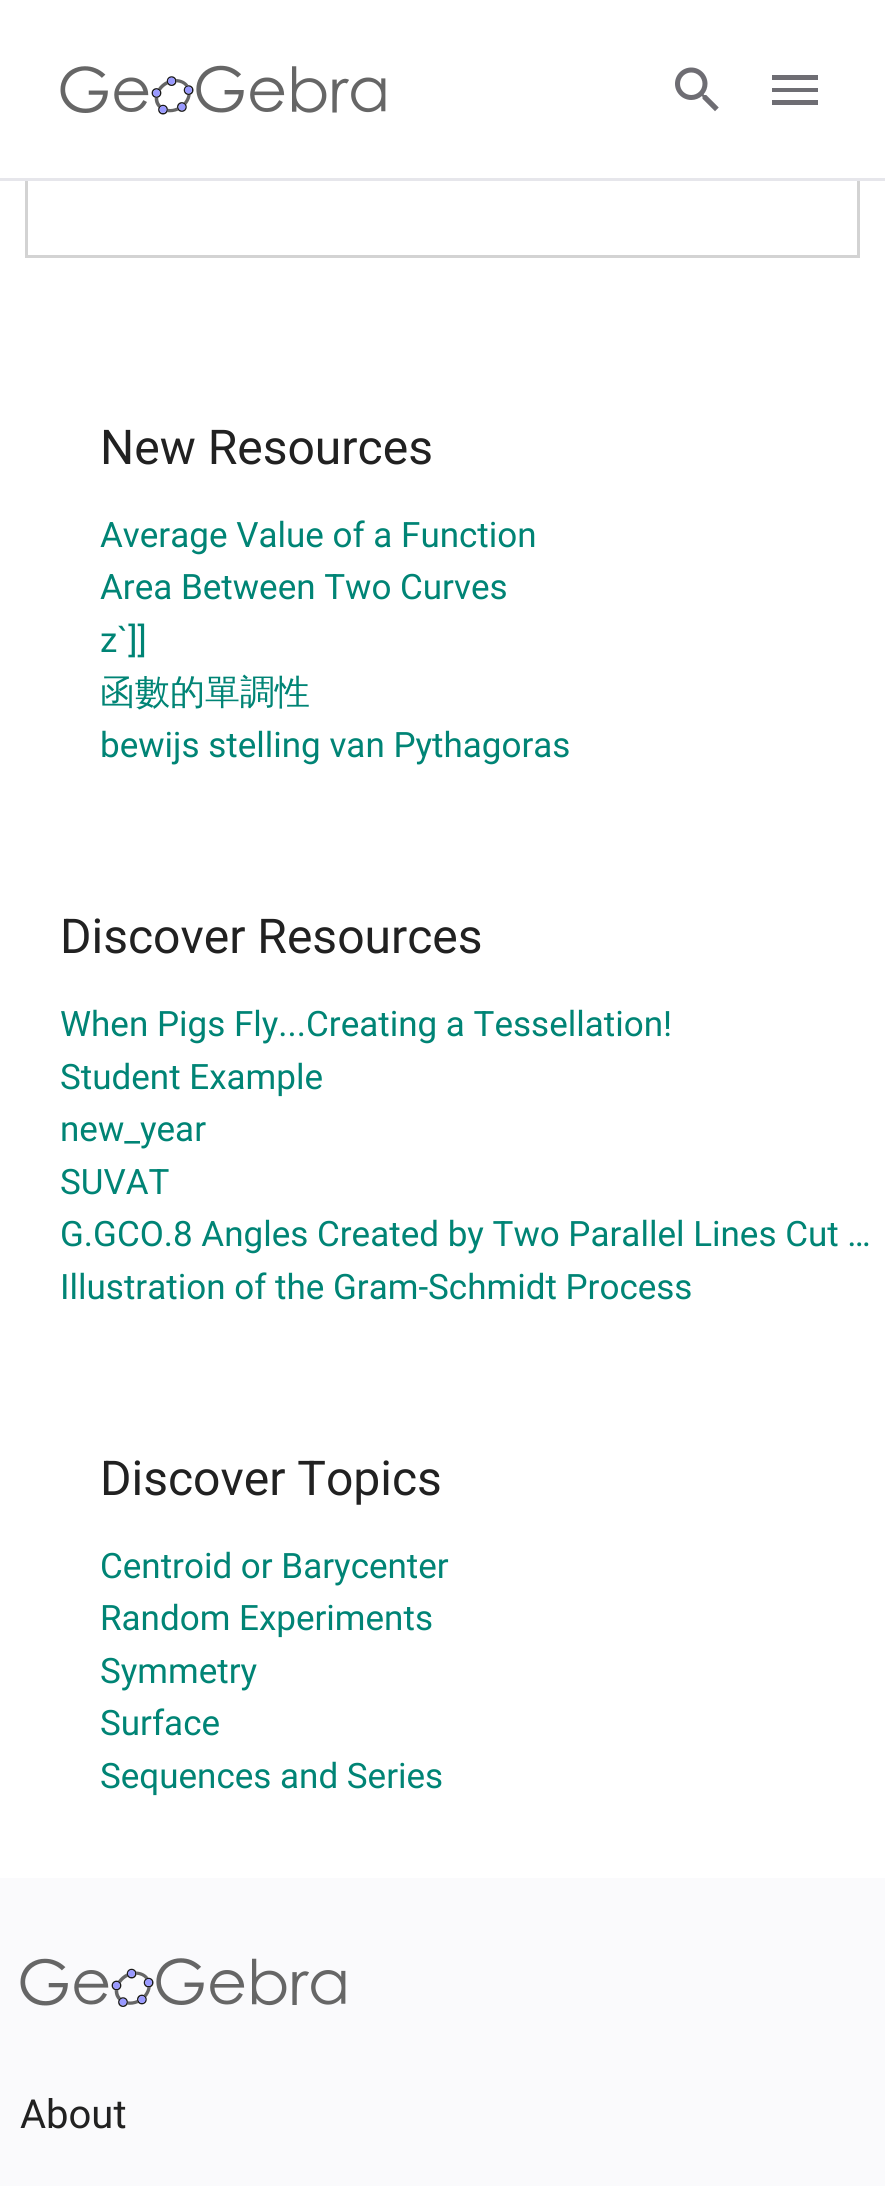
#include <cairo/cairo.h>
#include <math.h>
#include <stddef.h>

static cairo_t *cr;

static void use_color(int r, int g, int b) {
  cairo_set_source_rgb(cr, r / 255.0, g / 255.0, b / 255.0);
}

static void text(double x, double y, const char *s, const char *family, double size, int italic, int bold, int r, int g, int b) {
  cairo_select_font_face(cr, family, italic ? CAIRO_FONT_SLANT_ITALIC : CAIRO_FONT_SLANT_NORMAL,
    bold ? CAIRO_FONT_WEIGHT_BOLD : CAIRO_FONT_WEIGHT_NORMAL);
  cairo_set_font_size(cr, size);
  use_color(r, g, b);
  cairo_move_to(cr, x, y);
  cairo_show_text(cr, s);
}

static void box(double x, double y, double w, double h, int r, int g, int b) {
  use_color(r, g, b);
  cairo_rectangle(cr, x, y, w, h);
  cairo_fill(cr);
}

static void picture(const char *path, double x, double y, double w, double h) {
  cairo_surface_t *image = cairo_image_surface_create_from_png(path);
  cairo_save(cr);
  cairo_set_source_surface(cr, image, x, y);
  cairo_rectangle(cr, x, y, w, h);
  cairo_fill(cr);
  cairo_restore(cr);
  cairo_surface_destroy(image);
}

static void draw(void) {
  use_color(255, 255, 255);
  cairo_paint(cr);
  cairo_rectangle(cr, 26.5, -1.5, 832, 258);
  use_color(211, 211, 211);
  cairo_set_line_width(cr, 3);
  cairo_stroke(cr);
  box(25, 0, 835, 178, 255, 255, 255);
  box(0, 178, 885, 3, 230, 230, 235);
  picture("img_01.png", 60, 65, 326, 50);
  picture("img_02.png", 675, 67, 44, 45);
  use_color(110, 109, 115);
  cairo_new_path(cr);
  cairo_move_to(cr, 772, 75);
  cairo_line_to(cr, 818, 75);
  cairo_line_to(cr, 818, 80);
  cairo_line_to(cr, 772, 80);
  cairo_line_to(cr, 772, 75);
  cairo_move_to(cr, 772, 88);
  cairo_line_to(cr, 818, 88);
  cairo_line_to(cr, 818, 92);
  cairo_line_to(cr, 772, 92);
  cairo_line_to(cr, 772, 88);
  cairo_move_to(cr, 772, 100);
  cairo_line_to(cr, 818, 100);
  cairo_line_to(cr, 818, 105);
  cairo_line_to(cr, 772, 105);
  cairo_close_path(cr);
  cairo_fill(cr);
  box(0, 1878, 885, 308, 250, 250, 252);
  picture("img_03.png", 20, 1958, 326, 49);
  text(100, 464, "New Resources", "Roboto", 48, 0, 0, 33, 33, 33);
  text(100, 547, "Average Value of a Function", "Roboto", 35, 0, 0, 0, 132, 117);
  text(100, 599, "Area Between Two Curves", "Roboto", 35, 0, 0, 0, 132, 117);
  text(100, 652, "z`]]", "Roboto", 35, 0, 0, 0, 132, 117);
  text(100, 704, "函數的單調性", "WenQuanYi Zen Hei Medium", 35, 0, 0, 0, 132, 117);
  text(100, 757, "bewijs stelling van Pythagoras", "Roboto", 35, 0, 0, 0, 132, 117);
  text(60, 953, "Discover Resources", "Roboto", 48, 0, 0, 33, 33, 33);
  text(60, 1036, "When Pigs Fly...Creating a Tessellation!", "Roboto", 35, 0, 0, 0, 132, 117);
  text(60, 1089, "Student Example", "Roboto", 35, 0, 0, 0, 132, 117);
  text(60, 1141, "new_year", "Roboto", 35, 0, 0, 0, 132, 117);
  text(60, 1194, "SUVAT", "Roboto", 35, 0, 0, 0, 132, 117);
  text(60, 1246, "G.GCO.8 Angles Created by Two Parallel Lines Cut …", "Roboto", 35, 0, 0, 0, 132, 117);
  text(60, 1299, "Illustration of the Gram-Schmidt Process", "Roboto", 35, 0, 0, 0, 132, 117);
  text(100, 1495, "Discover Topics", "Roboto", 48, 0, 0, 33, 33, 33);
  text(100, 1578, "Centroid or Barycenter", "Roboto", 35, 0, 0, 0, 132, 117);
  text(100, 1630, "Random Experiments", "Roboto", 35, 0, 0, 0, 132, 117);
  text(100, 1683, "Symmetry", "Roboto", 35, 0, 0, 0, 132, 117);
  text(100, 1735, "Surface", "Roboto", 35, 0, 0, 0, 132, 117);
  text(100, 1788, "Sequences and Series", "Roboto", 35, 0, 0, 0, 132, 117);
  text(20, 2128, "About", "Roboto", 40, 0, 0, 33, 33, 33);
}

int main(void) {
  cairo_surface_t *surface = cairo_image_surface_create(CAIRO_FORMAT_RGB24, 885, 2186);
  cr = cairo_create(surface);
  cairo_font_options_t *options = cairo_font_options_create();
  cairo_font_options_set_hint_metrics(options, CAIRO_HINT_METRICS_OFF);
  cairo_font_options_set_hint_style(options, CAIRO_HINT_STYLE_NONE);
  cairo_set_font_options(cr, options);
  cairo_set_miter_limit(cr, 4);
  draw();
  cairo_surface_write_to_png(surface, "out.png");
  cairo_font_options_destroy(options);
  cairo_destroy(cr);
  cairo_surface_destroy(surface);
  return 0;
}
